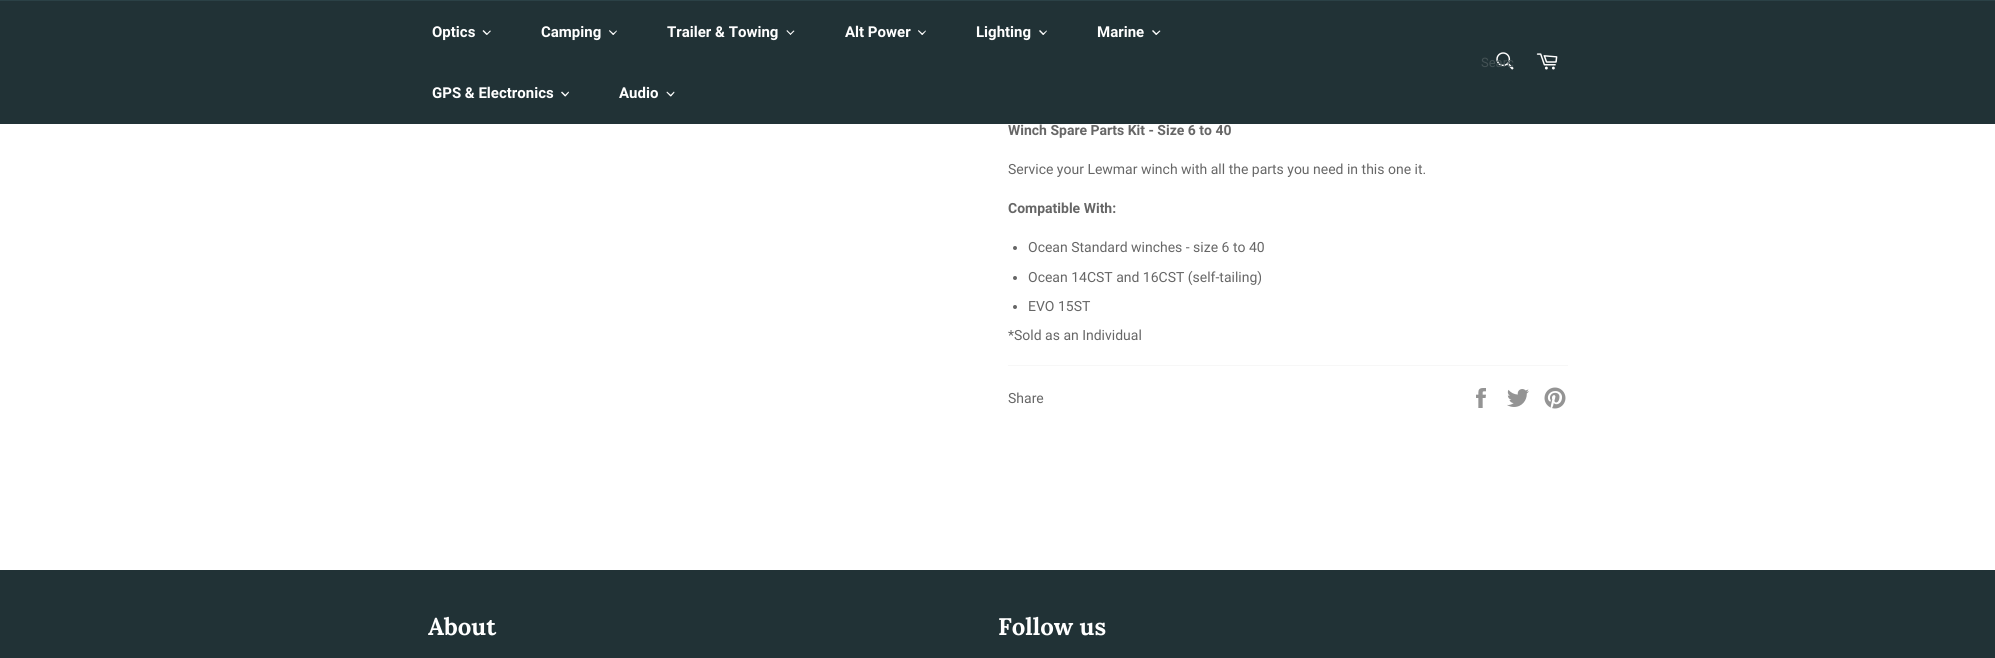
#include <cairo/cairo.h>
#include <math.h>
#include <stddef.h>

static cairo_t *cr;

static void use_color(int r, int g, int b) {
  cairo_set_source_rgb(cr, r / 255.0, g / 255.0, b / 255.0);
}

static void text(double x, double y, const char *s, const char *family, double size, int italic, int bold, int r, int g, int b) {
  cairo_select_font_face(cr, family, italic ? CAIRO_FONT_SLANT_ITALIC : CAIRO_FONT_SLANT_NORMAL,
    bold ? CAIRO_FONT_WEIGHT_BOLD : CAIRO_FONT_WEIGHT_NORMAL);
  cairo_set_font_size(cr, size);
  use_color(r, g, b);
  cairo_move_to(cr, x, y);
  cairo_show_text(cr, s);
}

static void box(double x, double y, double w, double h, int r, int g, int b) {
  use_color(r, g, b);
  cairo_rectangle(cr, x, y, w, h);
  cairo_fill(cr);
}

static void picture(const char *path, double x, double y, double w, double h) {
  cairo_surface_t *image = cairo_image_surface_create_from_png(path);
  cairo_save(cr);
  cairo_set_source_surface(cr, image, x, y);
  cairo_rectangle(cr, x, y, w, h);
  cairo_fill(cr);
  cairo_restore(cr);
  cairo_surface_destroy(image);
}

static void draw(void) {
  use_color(255, 255, 255);
  cairo_paint(cr);
  box(0, 1, 1995, 123, 33, 50, 54);
  box(0, 0, 1995, 1, 43, 65, 70);
  use_color(255, 255, 255);
  cairo_new_path(cr);
  cairo_move_to(cr, 490, 30.5);
  cairo_line_to(cr, 491, 31);
  cairo_line_to(cr, 487, 35);
  cairo_line_to(cr, 486.5, 34);
  cairo_close_path(cr);
  cairo_fill(cr);
  cairo_new_path(cr);
  cairo_move_to(cr, 483.5, 30);
  cairo_line_to(cr, 487.5, 34);
  cairo_line_to(cr, 486.5, 35);
  cairo_line_to(cr, 482.5, 31);
  cairo_close_path(cr);
  cairo_fill(cr);
  cairo_new_path(cr);
  cairo_move_to(cr, 616.5, 30.5);
  cairo_line_to(cr, 617, 31);
  cairo_line_to(cr, 613.5, 35);
  cairo_line_to(cr, 612.5, 34);
  cairo_close_path(cr);
  cairo_fill(cr);
  cairo_new_path(cr);
  cairo_move_to(cr, 609.5, 30);
  cairo_line_to(cr, 614, 34);
  cairo_line_to(cr, 613, 35);
  cairo_line_to(cr, 609, 31);
  cairo_close_path(cr);
  cairo_fill(cr);
  cairo_new_path(cr);
  cairo_move_to(cr, 793.5, 30.5);
  cairo_line_to(cr, 794.5, 31);
  cairo_line_to(cr, 790.5, 35);
  cairo_line_to(cr, 790, 34);
  cairo_close_path(cr);
  cairo_fill(cr);
  cairo_new_path(cr);
  cairo_move_to(cr, 787, 30);
  cairo_line_to(cr, 791, 34);
  cairo_line_to(cr, 790.5, 35);
  cairo_line_to(cr, 786.5, 31);
  cairo_close_path(cr);
  cairo_fill(cr);
  cairo_new_path(cr);
  cairo_move_to(cr, 925.5, 30.5);
  cairo_line_to(cr, 926, 31);
  cairo_line_to(cr, 922.5, 35);
  cairo_line_to(cr, 921.5, 34);
  cairo_close_path(cr);
  cairo_fill(cr);
  cairo_new_path(cr);
  cairo_move_to(cr, 918.5, 30);
  cairo_line_to(cr, 923, 34);
  cairo_line_to(cr, 922, 35);
  cairo_line_to(cr, 918, 31);
  cairo_close_path(cr);
  cairo_fill(cr);
  cairo_new_path(cr);
  cairo_move_to(cr, 1046.5, 30.5);
  cairo_line_to(cr, 1047, 31);
  cairo_line_to(cr, 1043.5, 35);
  cairo_line_to(cr, 1042.5, 34);
  cairo_close_path(cr);
  cairo_fill(cr);
  cairo_new_path(cr);
  cairo_move_to(cr, 1040, 30);
  cairo_line_to(cr, 1044, 34);
  cairo_line_to(cr, 1043, 35);
  cairo_line_to(cr, 1039, 31);
  cairo_close_path(cr);
  cairo_fill(cr);
  cairo_new_path(cr);
  cairo_move_to(cr, 1159.5, 30.5);
  cairo_line_to(cr, 1160.5, 31);
  cairo_line_to(cr, 1156.5, 35);
  cairo_line_to(cr, 1155.5, 34);
  cairo_close_path(cr);
  cairo_fill(cr);
  cairo_new_path(cr);
  cairo_move_to(cr, 1153, 30);
  cairo_line_to(cr, 1157, 34);
  cairo_line_to(cr, 1156, 35);
  cairo_line_to(cr, 1152, 31);
  cairo_close_path(cr);
  cairo_fill(cr);
  cairo_new_path(cr);
  cairo_move_to(cr, 568.5, 91.5);
  cairo_line_to(cr, 569, 92.5);
  cairo_line_to(cr, 565.5, 96.5);
  cairo_line_to(cr, 564.5, 95.5);
  cairo_close_path(cr);
  cairo_fill(cr);
  cairo_new_path(cr);
  cairo_move_to(cr, 562, 91.5);
  cairo_line_to(cr, 566, 95.5);
  cairo_line_to(cr, 565, 96.5);
  cairo_line_to(cr, 561, 92.5);
  cairo_close_path(cr);
  cairo_fill(cr);
  cairo_new_path(cr);
  cairo_move_to(cr, 674, 91.5);
  cairo_line_to(cr, 674.5, 92.5);
  cairo_line_to(cr, 671, 96.5);
  cairo_line_to(cr, 670, 95.5);
  cairo_close_path(cr);
  cairo_fill(cr);
  cairo_new_path(cr);
  cairo_move_to(cr, 667, 91.5);
  cairo_line_to(cr, 671.5, 95.5);
  cairo_line_to(cr, 670.5, 96.5);
  cairo_line_to(cr, 666.5, 92.5);
  cairo_close_path(cr);
  cairo_fill(cr);
  picture("img_01.png", 1496, 52, 18, 18);
  picture("img_02.png", 1536, 53, 22, 17);
  use_color(102, 102, 102);
  cairo_arc(cr, 1015, 248, 2, 0, 2 * M_PI);
  cairo_fill(cr);
  cairo_arc(cr, 1015, 278, 2, 0, 2 * M_PI);
  cairo_fill(cr);
  cairo_arc(cr, 1015, 307, 2, 0, 2 * M_PI);
  cairo_fill(cr);
  box(1008, 365, 560, 1, 247, 247, 247);
  picture("img_03.png", 1476, 388, 10, 20);
  picture("img_04.png", 1507, 389, 22, 18);
  picture("img_05.png", 1544, 387, 22, 22);
  box(0, 570, 1995, 88, 33, 50, 54);
  text(432, 37, "Optics", "Roboto", 15, 0, 1, 255, 255, 255);
  text(541, 37, "Camping", "Roboto", 15, 0, 1, 255, 255, 255);
  text(667, 37, "Trailer & Towing", "Roboto", 15, 0, 1, 255, 255, 255);
  text(845, 37, "Alt Power", "Roboto", 15, 0, 1, 255, 255, 255);
  text(976, 37, "Lighting", "Roboto", 15, 0, 1, 255, 255, 255);
  text(1097, 37, "Marine", "Roboto", 15, 0, 1, 255, 255, 255);
  text(432, 98, "GPS & Electronics", "Roboto", 15, 0, 1, 255, 255, 255);
  text(619, 98, "Audio", "Roboto", 15, 0, 1, 255, 255, 255);
  text(1481, 67, "Searc", "Roboto", 13, 0, 0, 67, 81, 84);
  text(1008, 135, "Winch Spare Parts Kit - Size 6 to 40", "Roboto", 14, 0, 1, 102, 102, 102);
  text(1008, 174, "Service your Lewmar winch with all the parts you need in this one it.", "Roboto", 14, 0, 0, 102, 102, 102);
  text(1008, 213, "Compatible With:", "Roboto", 14, 0, 1, 102, 102, 102);
  text(1028, 252, "Ocean Standard winches - size 6 to 40", "Roboto", 14, 0, 0, 102, 102, 102);
  text(1028, 282, "Ocean 14CST and 16CST (self-tailing)", "Roboto", 14, 0, 0, 102, 102, 102);
  text(1028, 311, "EVO 15ST", "Roboto", 14, 0, 0, 102, 102, 102);
  text(1008, 340, "*Sold as an Individual", "Roboto", 14, 0, 0, 102, 102, 102);
  text(1008, 403, "Share", "Roboto", 14, 0, 0, 102, 102, 102);
  text(428, 635, "About", "Lora", 24, 0, 1, 255, 255, 255);
  text(998, 635, "Follow us", "Lora", 24, 0, 1, 255, 255, 255);
}

int main(void) {
  cairo_surface_t *surface = cairo_image_surface_create(CAIRO_FORMAT_RGB24, 1995, 658);
  cr = cairo_create(surface);
  cairo_font_options_t *options = cairo_font_options_create();
  cairo_font_options_set_hint_metrics(options, CAIRO_HINT_METRICS_OFF);
  cairo_font_options_set_hint_style(options, CAIRO_HINT_STYLE_NONE);
  cairo_set_font_options(cr, options);
  cairo_set_miter_limit(cr, 4);
  draw();
  cairo_surface_write_to_png(surface, "out.png");
  cairo_font_options_destroy(options);
  cairo_destroy(cr);
  cairo_surface_destroy(surface);
  return 0;
}
